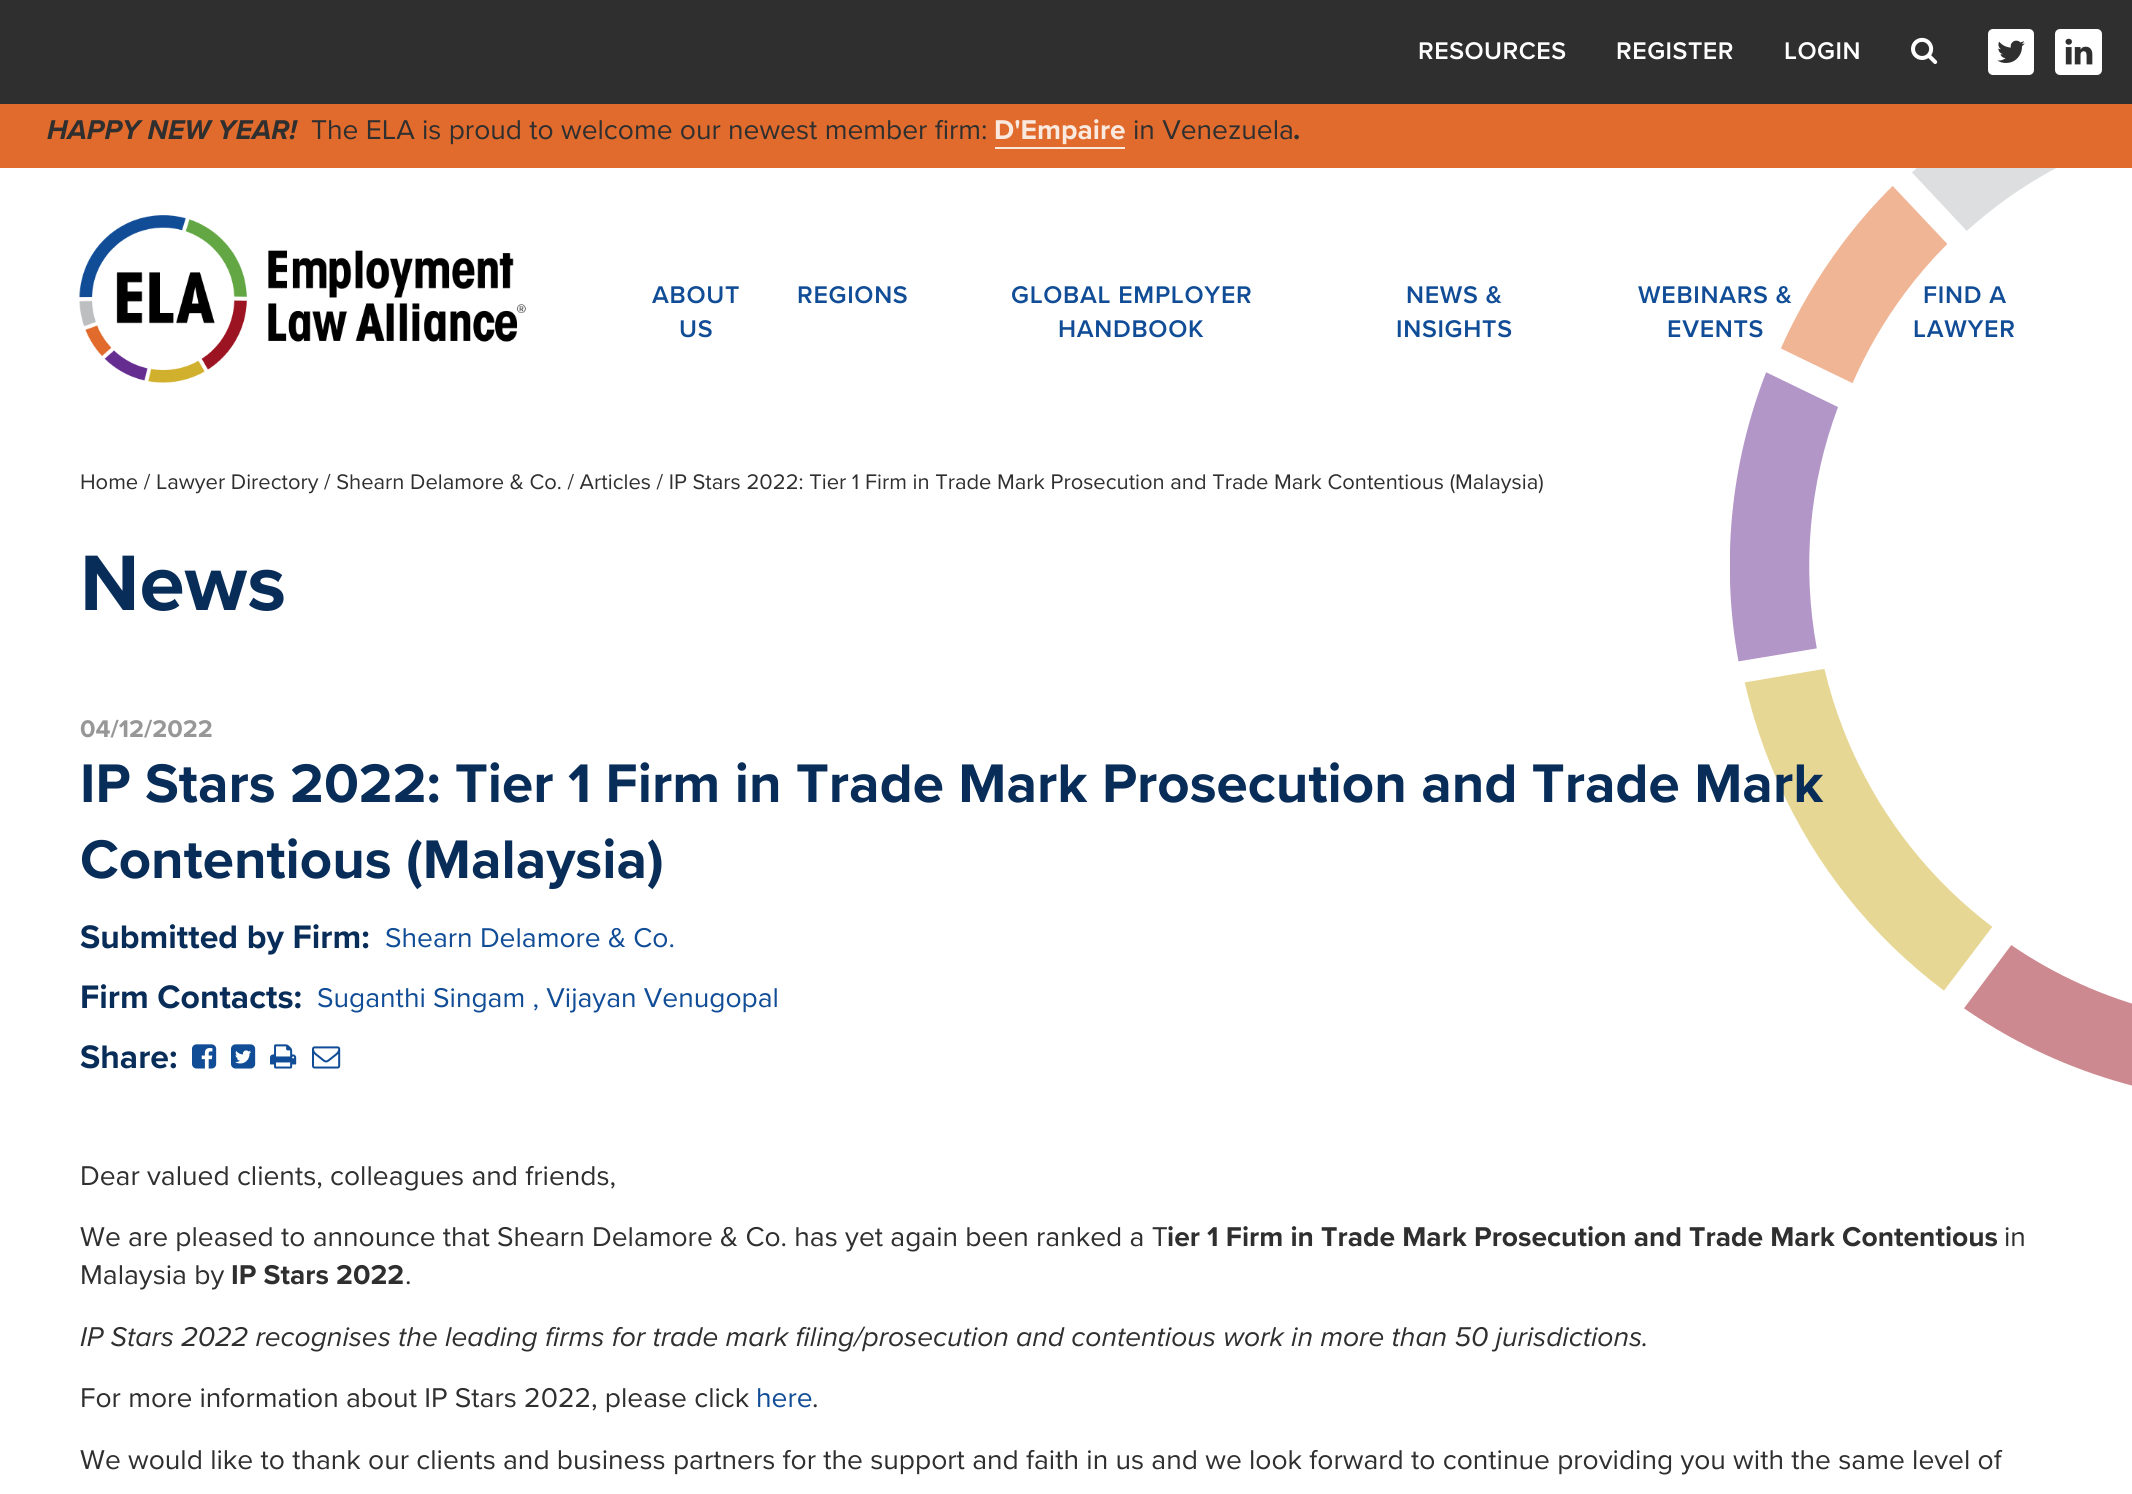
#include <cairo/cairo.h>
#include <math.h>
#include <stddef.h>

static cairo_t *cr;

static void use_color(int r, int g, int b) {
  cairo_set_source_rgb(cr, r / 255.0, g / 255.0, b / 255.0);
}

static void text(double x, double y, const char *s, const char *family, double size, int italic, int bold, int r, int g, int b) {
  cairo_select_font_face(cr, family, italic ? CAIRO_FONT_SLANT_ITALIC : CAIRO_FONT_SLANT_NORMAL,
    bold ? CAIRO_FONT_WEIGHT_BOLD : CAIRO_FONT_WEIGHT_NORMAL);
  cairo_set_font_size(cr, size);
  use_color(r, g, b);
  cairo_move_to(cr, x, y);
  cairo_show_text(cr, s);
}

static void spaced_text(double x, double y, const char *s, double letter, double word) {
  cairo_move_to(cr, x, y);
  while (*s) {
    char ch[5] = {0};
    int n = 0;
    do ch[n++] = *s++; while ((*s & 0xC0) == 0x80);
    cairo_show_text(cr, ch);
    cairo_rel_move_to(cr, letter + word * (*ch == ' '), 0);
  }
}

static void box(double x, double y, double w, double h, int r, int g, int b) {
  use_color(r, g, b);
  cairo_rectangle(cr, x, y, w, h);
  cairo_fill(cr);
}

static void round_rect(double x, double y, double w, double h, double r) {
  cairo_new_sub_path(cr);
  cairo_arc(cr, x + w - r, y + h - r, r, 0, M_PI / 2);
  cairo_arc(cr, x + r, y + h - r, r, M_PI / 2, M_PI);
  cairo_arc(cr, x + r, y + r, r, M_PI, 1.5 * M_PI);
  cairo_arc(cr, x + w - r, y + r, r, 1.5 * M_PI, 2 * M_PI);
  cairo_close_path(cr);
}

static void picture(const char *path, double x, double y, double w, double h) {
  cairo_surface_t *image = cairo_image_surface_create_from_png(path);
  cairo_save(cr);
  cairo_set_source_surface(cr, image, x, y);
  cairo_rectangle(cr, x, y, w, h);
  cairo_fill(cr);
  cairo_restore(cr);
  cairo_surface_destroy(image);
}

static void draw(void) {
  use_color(255, 255, 255);
  cairo_paint(cr);
  box(0, 0, 2132, 104, 47, 47, 47);
  picture("img_01.png", 1911, 37, 27, 27);
  use_color(255, 255, 255);
  round_rect(1988, 29, 46, 46, 5);
  cairo_fill(cr);
  picture("img_02.png", 1997, 40, 28, 23);
  round_rect(2055, 29, 47, 46, 5);
  cairo_fill(cr);
  picture("img_03.png", 2065, 38, 28, 27);
  box(0, 104, 2132, 64, 224, 107, 44);
  box(995, 147, 130, 2, 250, 233, 223);
  picture("img_04.png", 79, 215, 447, 168);
  picture("img_05.png", 1730, 168, 402, 918);
  picture("img_06.png", 192, 1044, 25, 25);
  picture("img_07.png", 231, 1044, 25, 25);
  picture("img_08.png", 270, 1044, 27, 25);
  picture("img_09.png", 312, 1046, 29, 23);
  cairo_select_font_face(cr, "Proxima Nova SemiBold", CAIRO_FONT_SLANT_NORMAL, CAIRO_FONT_WEIGHT_NORMAL);
  cairo_set_font_size(cr, 25);
  use_color(255, 255, 255);
  spaced_text(1418, 59, "RESOURCES", 0.5, 0);
  spaced_text(1616, 59, "REGISTER", 0.5, 0);
  spaced_text(1784, 59, "LOGIN", 0.5, 0);
  text(47, 139, "HAPPY NEW YEAR!", "Proxima Nova", 28.18, 1, 1, 47, 47, 47);
  text(311, 139, "The ELA is proud to welcome our newest member firm:", "Proxima Nova", 28.18, 0, 0, 47, 47, 47);
  text(994, 139, "D'Empaire", "Proxima Nova", 28.18, 0, 1, 250, 233, 223);
  text(1133, 139, "in Venezuela", "Proxima Nova", 28.18, 0, 0, 47, 47, 47);
  text(1293, 139, ".", "Proxima Nova", 28.18, 0, 1, 47, 47, 47);
  cairo_select_font_face(cr, "Proxima Nova SemiBold", CAIRO_FONT_SLANT_NORMAL, CAIRO_FONT_WEIGHT_NORMAL);
  cairo_set_font_size(cr, 25);
  use_color(17, 77, 151);
  spaced_text(652, 303, "ABOUT", 0.7, 0);
  spaced_text(679, 337, "US", 0.7, 0);
  spaced_text(797, 303, "REGIONS", 0.7, 0);
  spaced_text(1011, 303, "GLOBAL EMPLOYER", 0.7, 0);
  spaced_text(1058, 337, "HANDBOOK", 0.7, 0);
  spaced_text(1406, 303, "NEWS &", 0.7, 0);
  spaced_text(1396, 337, "INSIGHTS", 0.7, 0);
  spaced_text(1638, 303, "WEBINARS &", 0.7, 0);
  spaced_text(1667, 337, "EVENTS", 0.7, 0);
  spaced_text(1923, 303, "FIND A", 0.7, 0);
  spaced_text(1913, 337, "LAWYER", 0.7, 0);
  text(80, 489, "Home / Lawyer Directory / Shearn Delamore & Co. / Articles / IP Stars 2022: Tier 1 Firm in Trade Mark Prosecution and Trade Mark Contentious (Malaysia)", "Proxima Nova", 21.92, 0, 0, 47, 47, 47);
  text(80, 610, "News", "Proxima Nova", 81.5, 0, 1, 9, 45, 89);
  text(80, 737, "04/12/2022", "Proxima Nova", 25, 0, 1, 151, 151, 151);
  text(80, 802, "IP Stars 2022: Tier 1 Firm in Trade Mark Prosecution and Trade Mark", "Proxima Nova", 56.35, 0, 1, 9, 45, 89);
  text(80, 878, "Contentious (Malaysia)", "Proxima Nova", 56.35, 0, 1, 9, 45, 89);
  text(80, 948, "Submitted by Firm:", "Proxima Nova", 33.75, 0, 1, 9, 45, 89);
  text(385, 947, "Shearn Delamore & Co.", "Proxima Nova", 28.18, 0, 0, 17, 77, 151);
  text(80, 1008, "Firm Contacts:", "Proxima Nova", 33.75, 0, 1, 9, 45, 89);
  text(317, 1007, "Suganthi Singam , Vijayan Venugopal", "Proxima Nova", 28.18, 0, 0, 17, 77, 151);
  text(80, 1068, "Share:", "Proxima Nova", 33.75, 0, 1, 9, 45, 89);
  text(80, 1185, "Dear valued clients, colleagues and friends,", "Proxima Nova", 28.18, 0, 0, 47, 47, 47);
  text(80, 1246, "We are pleased to announce that Shearn Delamore & Co. has yet again been ranked a T", "Proxima Nova", 28.18, 0, 0, 47, 47, 47);
  text(1167, 1246, "ier 1 Firm in Trade Mark Prosecution and Trade Mark Contentious", "Proxima Nova", 28.18, 0, 1, 47, 47, 47);
  text(2004, 1246, "in", "Proxima Nova", 28.18, 0, 0, 47, 47, 47);
  text(80, 1284, "Malaysia by", "Proxima Nova", 28.18, 0, 0, 47, 47, 47);
  text(231, 1284, "IP Stars 2022", "Proxima Nova", 28.18, 0, 1, 47, 47, 47);
  text(405, 1284, ".", "Proxima Nova", 28.18, 0, 0, 47, 47, 47);
  text(80, 1346, "IP Stars 2022 recognises the leading firms for trade mark filing/prosecution and contentious work in more than 50 jurisdictions.", "Proxima Nova", 28.18, 1, 0, 47, 47, 47);
  text(80, 1407, "For more information about IP Stars 2022, please click", "Proxima Nova", 28.18, 0, 0, 47, 47, 47);
  text(756, 1407, "here", "Proxima Nova", 28.18, 0, 0, 17, 77, 151);
  text(812, 1407, ".", "Proxima Nova", 28.18, 0, 0, 47, 47, 47);
  text(80, 1469, "We would like to thank our clients and business partners for the support and faith in us and we look forward to continue providing you with the same level of", "Proxima Nova", 28.18, 0, 0, 47, 47, 47);
}

int main(void) {
  cairo_surface_t *surface = cairo_image_surface_create(CAIRO_FORMAT_RGB24, 2132, 1494);
  cr = cairo_create(surface);
  cairo_font_options_t *options = cairo_font_options_create();
  cairo_font_options_set_hint_metrics(options, CAIRO_HINT_METRICS_OFF);
  cairo_font_options_set_hint_style(options, CAIRO_HINT_STYLE_NONE);
  cairo_set_font_options(cr, options);
  cairo_set_miter_limit(cr, 4);
  draw();
  cairo_surface_write_to_png(surface, "out.png");
  cairo_font_options_destroy(options);
  cairo_destroy(cr);
  cairo_surface_destroy(surface);
  return 0;
}
